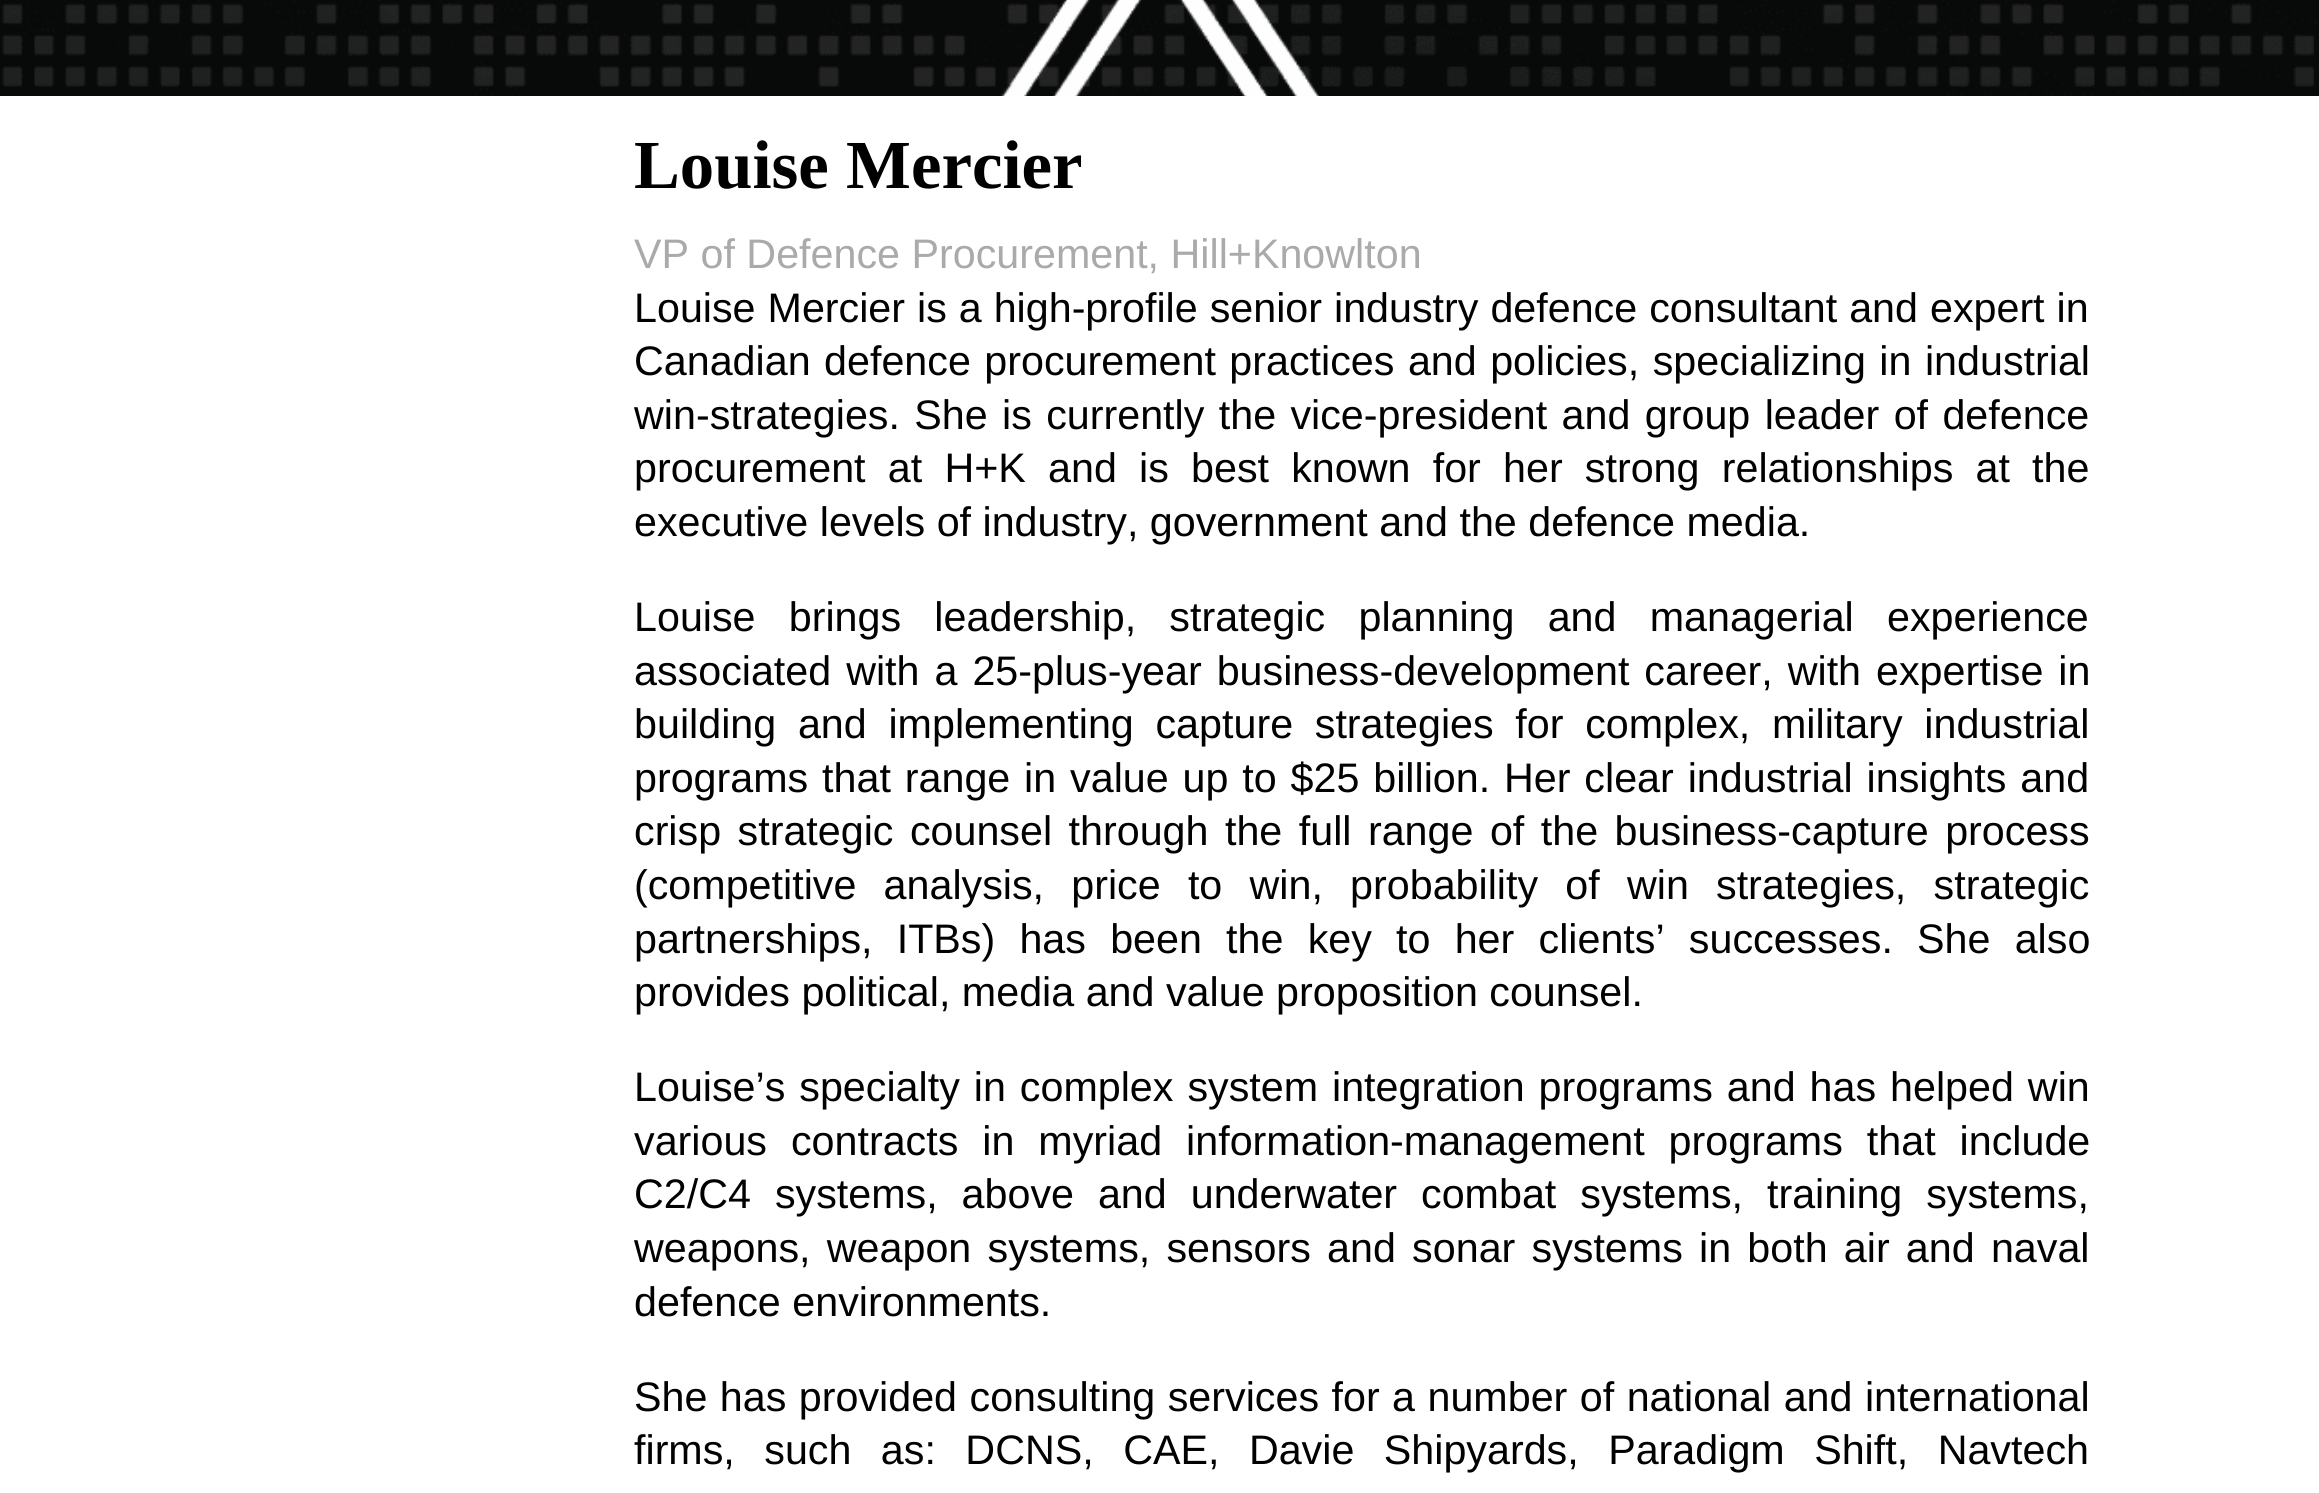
#include <cairo/cairo.h>
#include <math.h>
#include <stddef.h>

static cairo_t *cr;

static void use_color(int r, int g, int b) {
  cairo_set_source_rgb(cr, r / 255.0, g / 255.0, b / 255.0);
}

static void text(double x, double y, const char *s, const char *family, double size, int italic, int bold, int r, int g, int b) {
  cairo_select_font_face(cr, family, italic ? CAIRO_FONT_SLANT_ITALIC : CAIRO_FONT_SLANT_NORMAL,
    bold ? CAIRO_FONT_WEIGHT_BOLD : CAIRO_FONT_WEIGHT_NORMAL);
  cairo_set_font_size(cr, size);
  use_color(r, g, b);
  cairo_move_to(cr, x, y);
  cairo_show_text(cr, s);
}

static void spaced_text(double x, double y, const char *s, double letter, double word) {
  cairo_move_to(cr, x, y);
  while (*s) {
    char ch[5] = {0};
    int n = 0;
    do ch[n++] = *s++; while ((*s & 0xC0) == 0x80);
    cairo_show_text(cr, ch);
    cairo_rel_move_to(cr, letter + word * (*ch == ' '), 0);
  }
}

static void picture(const char *path, double x, double y, double w, double h) {
  cairo_surface_t *image = cairo_image_surface_create_from_png(path);
  cairo_save(cr);
  cairo_set_source_surface(cr, image, x, y);
  cairo_rectangle(cr, x, y, w, h);
  cairo_fill(cr);
  cairo_restore(cr);
  cairo_surface_destroy(image);
}

static void draw(void) {
  use_color(255, 255, 255);
  cairo_paint(cr);
  picture("img_01.png", 0, 0, 2319, 96);
  text(634, 188, "Louise Mercier", "Liberation Serif", 68.75, 0, 1, 0, 0, 0);
  text(634, 268, "VP of Defence Procurement, Hill+Knowlton", "Liberation Sans", 41.25, 0, 0, 170, 170, 170);
  use_color(0, 0, 0);
  spaced_text(634, 322, "Louise Mercier is a high-profile senior industry defence consultant and expert in", 0, 0.5);
  spaced_text(634, 375, "Canadian defence procurement practices and policies, specializing in industrial", 0, 2);
  spaced_text(634, 429, "win-strategies. She is currently the vice-president and group leader of defence", 0, 2.9);
  spaced_text(634, 482, "procurement at H+K and is best known for her strong relationships at the", 0, 10.75);
  text(634, 536, "executive levels of industry, government and the defence media.", "Liberation Sans", 41.25, 0, 0, 0, 0, 0);
  spaced_text(634, 631, "Louise brings leadership, strategic planning and managerial experience", 0, 21.75);
  spaced_text(634, 685, "associated with a 25-plus-year business-development career, with expertise in", 0, 3.5);
  spaced_text(634, 738, "building and implementing capture strategies for complex, military industrial", 0, 10.25);
  spaced_text(634, 792, "programs that range in value up to $25 billion. Her clear industrial insights and", 0, 2.4);
  spaced_text(634, 845, "crisp strategic counsel through the full range of the business-capture process", 0, 5);
  spaced_text(634, 899, "(competitive analysis, price to win, probability of win strategies, strategic", 0, 15.75);
  spaced_text(634, 953, "partnerships, ITBs) has been the key to her clients’ successes. She also", 0, 12.75);
  text(634, 1006, "provides political, media and value proposition counsel.", "Liberation Sans", 41.25, 0, 0, 0, 0, 0);
  spaced_text(634, 1101, "Louise’s specialty in complex system integration programs and has helped win", 0, 2.5);
  spaced_text(634, 1155, "various contracts in myriad information-management programs that include", 0, 12.5);
  spaced_text(634, 1208, "C2/C4 systems, above and underwater combat systems, training systems,", 0, 12.5);
  spaced_text(634, 1262, "weapons, weapon systems, sensors and sonar systems in both air and naval", 0, 4.75);
  text(634, 1316, "defence environments.", "Liberation Sans", 41.25, 0, 0, 0, 0, 0);
  spaced_text(634, 1411, "She has provided consulting services for a number of national and international", 0, 1);
  spaced_text(634, 1464, "firms, such as: DCNS, CAE, Davie Shipyards, Paradigm Shift, Navtech", 0, 18);
}

int main(void) {
  cairo_surface_t *surface = cairo_image_surface_create(CAIRO_FORMAT_RGB24, 2319, 1493);
  cr = cairo_create(surface);
  cairo_font_options_t *options = cairo_font_options_create();
  cairo_font_options_set_hint_metrics(options, CAIRO_HINT_METRICS_OFF);
  cairo_font_options_set_hint_style(options, CAIRO_HINT_STYLE_NONE);
  cairo_set_font_options(cr, options);
  cairo_set_miter_limit(cr, 4);
  draw();
  cairo_surface_write_to_png(surface, "out.png");
  cairo_font_options_destroy(options);
  cairo_destroy(cr);
  cairo_surface_destroy(surface);
  return 0;
}
